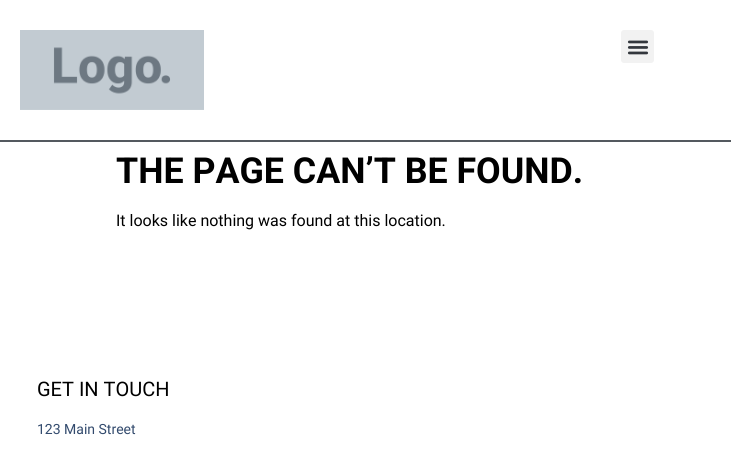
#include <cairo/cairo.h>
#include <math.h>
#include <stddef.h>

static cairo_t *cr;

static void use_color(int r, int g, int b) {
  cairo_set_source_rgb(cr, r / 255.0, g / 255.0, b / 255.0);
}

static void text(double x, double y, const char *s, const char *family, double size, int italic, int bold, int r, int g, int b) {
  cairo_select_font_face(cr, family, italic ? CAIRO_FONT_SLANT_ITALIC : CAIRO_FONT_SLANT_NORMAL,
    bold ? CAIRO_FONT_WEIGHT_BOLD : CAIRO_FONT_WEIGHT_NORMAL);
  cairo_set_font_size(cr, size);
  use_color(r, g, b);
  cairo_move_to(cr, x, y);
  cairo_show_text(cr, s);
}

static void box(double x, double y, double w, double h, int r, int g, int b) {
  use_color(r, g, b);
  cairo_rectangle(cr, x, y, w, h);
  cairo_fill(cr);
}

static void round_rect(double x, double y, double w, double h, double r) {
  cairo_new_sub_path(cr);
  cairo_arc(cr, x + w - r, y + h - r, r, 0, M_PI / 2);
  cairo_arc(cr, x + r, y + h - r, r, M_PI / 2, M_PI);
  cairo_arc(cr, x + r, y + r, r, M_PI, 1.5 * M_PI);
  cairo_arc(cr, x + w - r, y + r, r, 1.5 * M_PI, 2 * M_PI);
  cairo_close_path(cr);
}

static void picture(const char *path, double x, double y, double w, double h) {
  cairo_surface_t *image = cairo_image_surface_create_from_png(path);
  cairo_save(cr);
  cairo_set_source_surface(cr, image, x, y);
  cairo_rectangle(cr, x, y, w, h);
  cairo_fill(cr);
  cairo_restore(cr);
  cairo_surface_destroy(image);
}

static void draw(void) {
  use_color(255, 255, 255);
  cairo_paint(cr);
  box(0, 140, 731, 2, 84, 89, 95);
  picture("img_01.png", 20, 30, 184, 80);
  use_color(242, 242, 242);
  round_rect(621, 30, 33, 33, 3);
  cairo_fill(cr);
  picture("img_02.png", 627, 40, 22, 15);
  text(116, 183, "THE PAGE CAN’T BE FOUND.", "Roboto", 35.75, 0, 1, 0, 0, 0);
  text(116, 226, "It looks like nothing was found at this location.", "Roboto", 16, 0, 0, 0, 0, 0);
  text(37, 396, "GET IN TOUCH", "Roboto", 20, 0, 0, 0, 0, 0);
  text(37, 434, "123 Main Street", "Roboto", 14, 0, 0, 50, 74, 109);
}

int main(void) {
  cairo_surface_t *surface = cairo_image_surface_create(CAIRO_FORMAT_RGB24, 731, 451);
  cr = cairo_create(surface);
  cairo_font_options_t *options = cairo_font_options_create();
  cairo_font_options_set_hint_metrics(options, CAIRO_HINT_METRICS_OFF);
  cairo_font_options_set_hint_style(options, CAIRO_HINT_STYLE_NONE);
  cairo_set_font_options(cr, options);
  cairo_set_miter_limit(cr, 4);
  draw();
  cairo_surface_write_to_png(surface, "out.png");
  cairo_font_options_destroy(options);
  cairo_destroy(cr);
  cairo_surface_destroy(surface);
  return 0;
}
